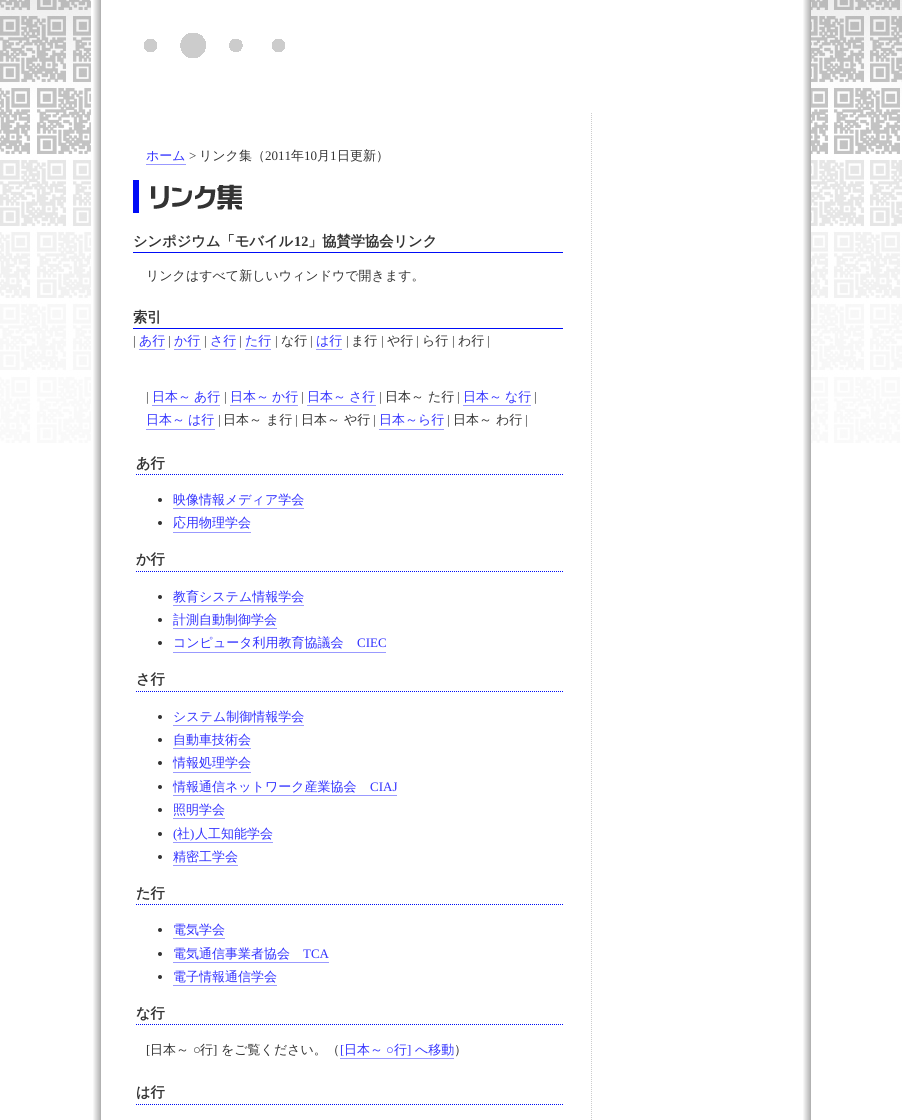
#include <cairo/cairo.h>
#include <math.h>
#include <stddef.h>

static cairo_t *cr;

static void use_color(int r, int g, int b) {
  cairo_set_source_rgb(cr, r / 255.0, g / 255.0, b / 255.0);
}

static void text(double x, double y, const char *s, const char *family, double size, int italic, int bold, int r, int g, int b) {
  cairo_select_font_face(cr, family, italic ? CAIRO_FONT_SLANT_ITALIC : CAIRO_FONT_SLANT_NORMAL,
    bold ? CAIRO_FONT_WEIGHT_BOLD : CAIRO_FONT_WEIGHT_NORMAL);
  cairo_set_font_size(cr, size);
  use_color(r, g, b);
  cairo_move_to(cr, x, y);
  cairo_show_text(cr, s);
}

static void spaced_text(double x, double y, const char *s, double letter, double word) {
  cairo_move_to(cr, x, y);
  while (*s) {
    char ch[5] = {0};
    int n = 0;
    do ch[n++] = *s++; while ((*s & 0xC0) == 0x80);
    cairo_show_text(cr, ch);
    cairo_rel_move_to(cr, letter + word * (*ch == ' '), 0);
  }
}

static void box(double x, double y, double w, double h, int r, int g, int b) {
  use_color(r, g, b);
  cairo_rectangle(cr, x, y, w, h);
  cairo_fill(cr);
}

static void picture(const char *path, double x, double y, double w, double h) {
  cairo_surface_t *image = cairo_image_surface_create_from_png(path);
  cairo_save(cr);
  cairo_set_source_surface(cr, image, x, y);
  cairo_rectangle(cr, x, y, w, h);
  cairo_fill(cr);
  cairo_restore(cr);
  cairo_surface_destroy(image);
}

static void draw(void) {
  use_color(255, 255, 255);
  cairo_paint(cr);
  picture("img_01.png", 0, 0, 902, 443);
  picture("img_02.png", 91, 0, 720, 1120);
  picture("img_03.png", 144, 33, 141, 25);
  picture("img_04.png", 591, 113, 1, 1007);
  box(146, 164, 40, 1, 153, 153, 255);
  picture("img_05.png", 151, 184, 91, 26);
  box(133, 180, 6, 33, 0, 12, 247);
  box(133, 252, 430, 1, 0, 12, 247);
  box(133, 328, 430, 1, 0, 12, 247);
  box(139, 349, 26, 1, 153, 153, 255);
  box(174, 349, 27, 1, 153, 153, 255);
  box(210, 349, 26, 1, 153, 153, 255);
  box(245, 349, 26, 1, 153, 153, 255);
  box(316, 349, 26, 1, 153, 153, 255);
  box(152, 405, 68, 1, 153, 153, 255);
  box(230, 405, 68, 1, 153, 153, 255);
  box(307, 405, 69, 1, 153, 153, 255);
  box(463, 405, 68, 1, 153, 153, 255);
  box(146, 429, 69, 1, 153, 153, 255);
  box(379, 429, 65, 1, 153, 153, 255);
  cairo_new_path(cr);
  cairo_move_to(cr, 136, 474.5);
  cairo_line_to(cr, 563, 474.5);
  use_color(0, 12, 247);
  cairo_set_line_width(cr, 1);
  cairo_set_dash(cr, (double[]){1, 1}, 2, 0);
  cairo_stroke(cr);
  use_color(51, 51, 51);
  cairo_arc(cr, 160, 500, 2, 0, 2 * M_PI);
  cairo_fill(cr);
  box(173, 508, 131, 1, 153, 153, 255);
  use_color(51, 51, 51);
  cairo_arc(cr, 160, 523, 2, 0, 2 * M_PI);
  cairo_fill(cr);
  box(173, 532, 78, 1, 153, 153, 255);
  cairo_new_path(cr);
  cairo_move_to(cr, 136, 571.5);
  cairo_line_to(cr, 563, 571.5);
  use_color(0, 12, 247);
  cairo_stroke(cr);
  use_color(51, 51, 51);
  cairo_arc(cr, 160, 597, 2, 0, 2 * M_PI);
  cairo_fill(cr);
  box(173, 605, 131, 1, 153, 153, 255);
  use_color(51, 51, 51);
  cairo_arc(cr, 160, 620, 2, 0, 2 * M_PI);
  cairo_fill(cr);
  box(173, 628, 104, 1, 153, 153, 255);
  use_color(51, 51, 51);
  cairo_arc(cr, 160, 643, 2, 0, 2 * M_PI);
  cairo_fill(cr);
  box(173, 652, 213, 1, 153, 153, 255);
  cairo_new_path(cr);
  cairo_move_to(cr, 136, 691.5);
  cairo_line_to(cr, 563, 691.5);
  use_color(0, 12, 247);
  cairo_stroke(cr);
  use_color(51, 51, 51);
  cairo_arc(cr, 160, 717, 2, 0, 2 * M_PI);
  cairo_fill(cr);
  box(173, 725, 131, 1, 153, 153, 255);
  use_color(51, 51, 51);
  cairo_arc(cr, 160, 740, 2, 0, 2 * M_PI);
  cairo_fill(cr);
  box(173, 748, 78, 1, 153, 153, 255);
  use_color(51, 51, 51);
  cairo_arc(cr, 160, 763, 2, 0, 2 * M_PI);
  cairo_fill(cr);
  box(173, 772, 78, 1, 153, 153, 255);
  use_color(51, 51, 51);
  cairo_arc(cr, 160, 787, 2, 0, 2 * M_PI);
  cairo_fill(cr);
  box(173, 795, 224, 1, 153, 153, 255);
  use_color(51, 51, 51);
  cairo_arc(cr, 160, 810, 2, 0, 2 * M_PI);
  cairo_fill(cr);
  box(173, 818, 52, 1, 153, 153, 255);
  use_color(51, 51, 51);
  cairo_arc(cr, 160, 834, 2, 0, 2 * M_PI);
  cairo_fill(cr);
  box(173, 842, 100, 1, 153, 153, 255);
  use_color(51, 51, 51);
  cairo_arc(cr, 160, 857, 2, 0, 2 * M_PI);
  cairo_fill(cr);
  box(173, 865, 65, 1, 153, 153, 255);
  cairo_new_path(cr);
  cairo_move_to(cr, 136, 904.5);
  cairo_line_to(cr, 563, 904.5);
  use_color(0, 12, 247);
  cairo_stroke(cr);
  use_color(51, 51, 51);
  cairo_arc(cr, 160, 930, 2, 0, 2 * M_PI);
  cairo_fill(cr);
  box(173, 938, 52, 1, 153, 153, 255);
  use_color(51, 51, 51);
  cairo_arc(cr, 160, 954, 2, 0, 2 * M_PI);
  cairo_fill(cr);
  box(173, 962, 156, 1, 153, 153, 255);
  use_color(51, 51, 51);
  cairo_arc(cr, 160, 977, 2, 0, 2 * M_PI);
  cairo_fill(cr);
  box(173, 985, 104, 1, 153, 153, 255);
  cairo_new_path(cr);
  cairo_move_to(cr, 136, 1024.5);
  cairo_line_to(cr, 563, 1024.5);
  use_color(0, 12, 247);
  cairo_stroke(cr);
  box(340, 1058, 114, 1, 153, 153, 255);
  cairo_new_path(cr);
  cairo_move_to(cr, 136, 1104.5);
  cairo_line_to(cr, 563, 1104.5);
  use_color(0, 12, 247);
  cairo_stroke(cr);
  text(146, 160, "ホーム", "WenQuanYi Zen Hei Medium", 13, 0, 0, 51, 51, 255);
  text(189, 160, ">", "Liberation Serif", 13, 0, 0, 51, 51, 51);
  text(199, 160, "リンク集（", "WenQuanYi Zen Hei Medium", 13, 0, 0, 51, 51, 51);
  text(265, 160, "2011", "Liberation Serif", 13, 0, 0, 51, 51, 51);
  text(291, 160, "年", "WenQuanYi Zen Hei Medium", 13, 0, 0, 51, 51, 51);
  text(304, 160, "10", "Liberation Serif", 13, 0, 0, 51, 51, 51);
  text(317, 160, "月", "WenQuanYi Zen Hei Medium", 13, 0, 0, 51, 51, 51);
  text(330, 160, "1", "Liberation Serif", 13, 0, 0, 51, 51, 51);
  text(337, 160, "日更新）", "WenQuanYi Zen Hei Medium", 13, 0, 0, 51, 51, 51);
  text(133, 246, "シンポジウム「モバイル", "WenQuanYi Zen Hei", 14.25, 0, 1, 51, 51, 51);
  text(294, 246, "12", "Liberation Serif", 14.25, 0, 1, 51, 51, 51);
  text(308, 246, "」協賛学協会リンク", "WenQuanYi Zen Hei", 14.25, 0, 1, 51, 51, 51);
  text(146, 280, "リンクはすべて新しいウィンドウで開きます。", "WenQuanYi Zen Hei Medium", 13, 0, 0, 51, 51, 51);
  text(133, 322, "索引", "WenQuanYi Zen Hei", 14.25, 0, 1, 51, 51, 51);
  text(133, 345, "|", "Liberation Serif", 13, 0, 0, 51, 51, 51);
  text(139, 345, "あ行", "WenQuanYi Zen Hei Medium", 13, 0, 0, 51, 51, 255);
  text(168, 345, "|", "Liberation Serif", 13, 0, 0, 51, 51, 51);
  text(174, 345, "か行", "WenQuanYi Zen Hei Medium", 13, 0, 0, 51, 51, 255);
  text(204, 345, "|", "Liberation Serif", 13, 0, 0, 51, 51, 51);
  text(210, 345, "さ行", "WenQuanYi Zen Hei Medium", 13, 0, 0, 51, 51, 255);
  text(239, 345, "|", "Liberation Serif", 13, 0, 0, 51, 51, 51);
  text(245, 345, "た行", "WenQuanYi Zen Hei Medium", 13, 0, 0, 51, 51, 255);
  text(275, 345, "|", "Liberation Serif", 13, 0, 0, 51, 51, 51);
  text(281, 345, "な行", "WenQuanYi Zen Hei Medium", 13, 0, 0, 51, 51, 51);
  text(310, 345, "|", "Liberation Serif", 13, 0, 0, 51, 51, 51);
  text(316, 345, "は行", "WenQuanYi Zen Hei Medium", 13, 0, 0, 51, 51, 255);
  text(346, 345, "|", "Liberation Serif", 13, 0, 0, 51, 51, 51);
  text(351, 345, "ま行", "WenQuanYi Zen Hei Medium", 13, 0, 0, 51, 51, 51);
  text(381, 345, "|", "Liberation Serif", 13, 0, 0, 51, 51, 51);
  text(387, 345, "や行", "WenQuanYi Zen Hei Medium", 13, 0, 0, 51, 51, 51);
  text(416, 345, "|", "Liberation Serif", 13, 0, 0, 51, 51, 51);
  text(422, 345, "ら行", "WenQuanYi Zen Hei Medium", 13, 0, 0, 51, 51, 51);
  text(452, 345, "|", "Liberation Serif", 13, 0, 0, 51, 51, 51);
  text(458, 345, "わ行", "WenQuanYi Zen Hei Medium", 13, 0, 0, 51, 51, 51);
  text(487, 345, "|", "Liberation Serif", 13, 0, 0, 51, 51, 51);
  text(146, 401, "|", "Liberation Serif", 13, 0, 0, 51, 51, 51);
  cairo_select_font_face(cr, "WenQuanYi Zen Hei Medium", CAIRO_FONT_SLANT_NORMAL, CAIRO_FONT_WEIGHT_NORMAL);
  use_color(51, 51, 255);
  spaced_text(152, 401, "日本～ あ行", 0, -1);
  text(224, 401, "|", "Liberation Serif", 13, 0, 0, 51, 51, 51);
  cairo_select_font_face(cr, "WenQuanYi Zen Hei Medium", CAIRO_FONT_SLANT_NORMAL, CAIRO_FONT_WEIGHT_NORMAL);
  use_color(51, 51, 255);
  spaced_text(230, 401, "日本～ か行", 0, -1);
  text(301, 401, "|", "Liberation Serif", 13, 0, 0, 51, 51, 51);
  cairo_select_font_face(cr, "WenQuanYi Zen Hei Medium", CAIRO_FONT_SLANT_NORMAL, CAIRO_FONT_WEIGHT_NORMAL);
  use_color(51, 51, 255);
  spaced_text(307, 401, "日本～ さ行", 0, -1);
  text(379, 401, "|", "Liberation Serif", 13, 0, 0, 51, 51, 51);
  text(385, 401, "日本～ た行", "WenQuanYi Zen Hei Medium", 13, 0, 0, 51, 51, 51);
  text(457, 401, "|", "Liberation Serif", 13, 0, 0, 51, 51, 51);
  cairo_select_font_face(cr, "WenQuanYi Zen Hei Medium", CAIRO_FONT_SLANT_NORMAL, CAIRO_FONT_WEIGHT_NORMAL);
  use_color(51, 51, 255);
  spaced_text(463, 401, "日本～ な行", 0, -1);
  text(534, 401, "|", "Liberation Serif", 13, 0, 0, 51, 51, 51);
  cairo_select_font_face(cr, "WenQuanYi Zen Hei Medium", CAIRO_FONT_SLANT_NORMAL, CAIRO_FONT_WEIGHT_NORMAL);
  use_color(51, 51, 255);
  spaced_text(146, 424, "日本～ は行", 0, -1);
  text(218, 424, "|", "Liberation Serif", 13, 0, 0, 51, 51, 51);
  text(223, 424, "日本～ ま行", "WenQuanYi Zen Hei Medium", 13, 0, 0, 51, 51, 51);
  text(295, 424, "|", "Liberation Serif", 13, 0, 0, 51, 51, 51);
  text(301, 424, "日本～ や行", "WenQuanYi Zen Hei Medium", 13, 0, 0, 51, 51, 51);
  text(373, 424, "|", "Liberation Serif", 13, 0, 0, 51, 51, 51);
  text(379, 424, "日本～ら行", "WenQuanYi Zen Hei Medium", 13, 0, 0, 51, 51, 255);
  text(447, 424, "|", "Liberation Serif", 13, 0, 0, 51, 51, 51);
  text(453, 424, "日本～ わ行", "WenQuanYi Zen Hei Medium", 13, 0, 0, 51, 51, 51);
  text(525, 424, "|", "Liberation Serif", 13, 0, 0, 51, 51, 51);
  text(136, 468, "あ行", "WenQuanYi Zen Hei", 14.25, 0, 1, 51, 51, 51);
  text(173, 504, "映像情報メディア学会", "WenQuanYi Zen Hei Medium", 13, 0, 0, 51, 51, 255);
  text(173, 527, "応用物理学会", "WenQuanYi Zen Hei Medium", 13, 0, 0, 51, 51, 255);
  text(136, 564, "か行", "WenQuanYi Zen Hei", 14.25, 0, 1, 51, 51, 51);
  text(173, 601, "教育システム情報学会", "WenQuanYi Zen Hei Medium", 13, 0, 0, 51, 51, 255);
  text(173, 624, "計測自動制御学会", "WenQuanYi Zen Hei Medium", 13, 0, 0, 51, 51, 255);
  text(173, 647, "コンピュータ利用教育協議会", "WenQuanYi Zen Hei Medium", 13, 0, 0, 51, 51, 255);
  text(357, 647, "CIEC", "Liberation Serif", 13, 0, 0, 51, 51, 255);
  text(136, 684, "さ行", "WenQuanYi Zen Hei", 14.25, 0, 1, 51, 51, 51);
  text(173, 721, "システム制御情報学会", "WenQuanYi Zen Hei Medium", 13, 0, 0, 51, 51, 255);
  text(173, 744, "自動車技術会", "WenQuanYi Zen Hei Medium", 13, 0, 0, 51, 51, 255);
  text(173, 767, "情報処理学会", "WenQuanYi Zen Hei Medium", 13, 0, 0, 51, 51, 255);
  text(173, 791, "情報通信ネットワーク産業協会", "WenQuanYi Zen Hei Medium", 13, 0, 0, 51, 51, 255);
  text(370, 791, "CIAJ", "Liberation Serif", 13, 0, 0, 51, 51, 255);
  text(173, 814, "照明学会", "WenQuanYi Zen Hei Medium", 13, 0, 0, 51, 51, 255);
  text(173, 838, "(", "Liberation Serif", 13, 0, 0, 51, 51, 255);
  text(177, 838, "社", "WenQuanYi Zen Hei Medium", 13, 0, 0, 51, 51, 255);
  text(190, 838, ")", "Liberation Serif", 13, 0, 0, 51, 51, 255);
  text(195, 838, "人工知能学会", "WenQuanYi Zen Hei Medium", 13, 0, 0, 51, 51, 255);
  text(173, 861, "精密工学会", "WenQuanYi Zen Hei Medium", 13, 0, 0, 51, 51, 255);
  text(136, 898, "た行", "WenQuanYi Zen Hei", 14.25, 0, 1, 51, 51, 51);
  text(173, 934, "電気学会", "WenQuanYi Zen Hei Medium", 13, 0, 0, 51, 51, 255);
  text(173, 958, "電気通信事業者協会", "WenQuanYi Zen Hei Medium", 13, 0, 0, 51, 51, 255);
  text(303, 958, "TCA", "Liberation Serif", 13, 0, 0, 51, 51, 255);
  text(173, 981, "電子情報通信学会", "WenQuanYi Zen Hei Medium", 13, 0, 0, 51, 51, 255);
  text(136, 1018, "な行", "WenQuanYi Zen Hei", 14.25, 0, 1, 51, 51, 51);
  text(146, 1054, "[", "Liberation Serif", 13, 0, 0, 51, 51, 51);
  text(150, 1054, "日本～", "WenQuanYi Zen Hei Medium", 13, 0, 0, 51, 51, 51);
  text(193, 1054, "○", "Liberation Serif", 13, 0, 0, 51, 51, 51);
  text(200, 1054, "行", "WenQuanYi Zen Hei Medium", 13, 0, 0, 51, 51, 51);
  text(213, 1054, "]", "Liberation Serif", 13, 0, 0, 51, 51, 51);
  text(221, 1054, "をご覧ください。（", "WenQuanYi Zen Hei Medium", 13, 0, 0, 51, 51, 51);
  text(340, 1054, "[", "Liberation Serif", 13, 0, 0, 51, 51, 255);
  text(344, 1054, "日本～", "WenQuanYi Zen Hei Medium", 13, 0, 0, 51, 51, 255);
  text(386, 1054, "○", "Liberation Serif", 13, 0, 0, 51, 51, 255);
  text(394, 1054, "行", "WenQuanYi Zen Hei Medium", 13, 0, 0, 51, 51, 255);
  text(407, 1054, "]", "Liberation Serif", 13, 0, 0, 51, 51, 255);
  text(415, 1054, "へ移動", "WenQuanYi Zen Hei Medium", 13, 0, 0, 51, 51, 255);
  text(454, 1054, "）", "WenQuanYi Zen Hei Medium", 13, 0, 0, 51, 51, 51);
  text(136, 1097, "は行", "WenQuanYi Zen Hei", 14.25, 0, 1, 51, 51, 51);
}

int main(void) {
  cairo_surface_t *surface = cairo_image_surface_create(CAIRO_FORMAT_RGB24, 902, 1120);
  cr = cairo_create(surface);
  cairo_font_options_t *options = cairo_font_options_create();
  cairo_font_options_set_hint_metrics(options, CAIRO_HINT_METRICS_OFF);
  cairo_font_options_set_hint_style(options, CAIRO_HINT_STYLE_NONE);
  cairo_set_font_options(cr, options);
  cairo_set_miter_limit(cr, 4);
  draw();
  cairo_surface_write_to_png(surface, "out.png");
  cairo_font_options_destroy(options);
  cairo_destroy(cr);
  cairo_surface_destroy(surface);
  return 0;
}
